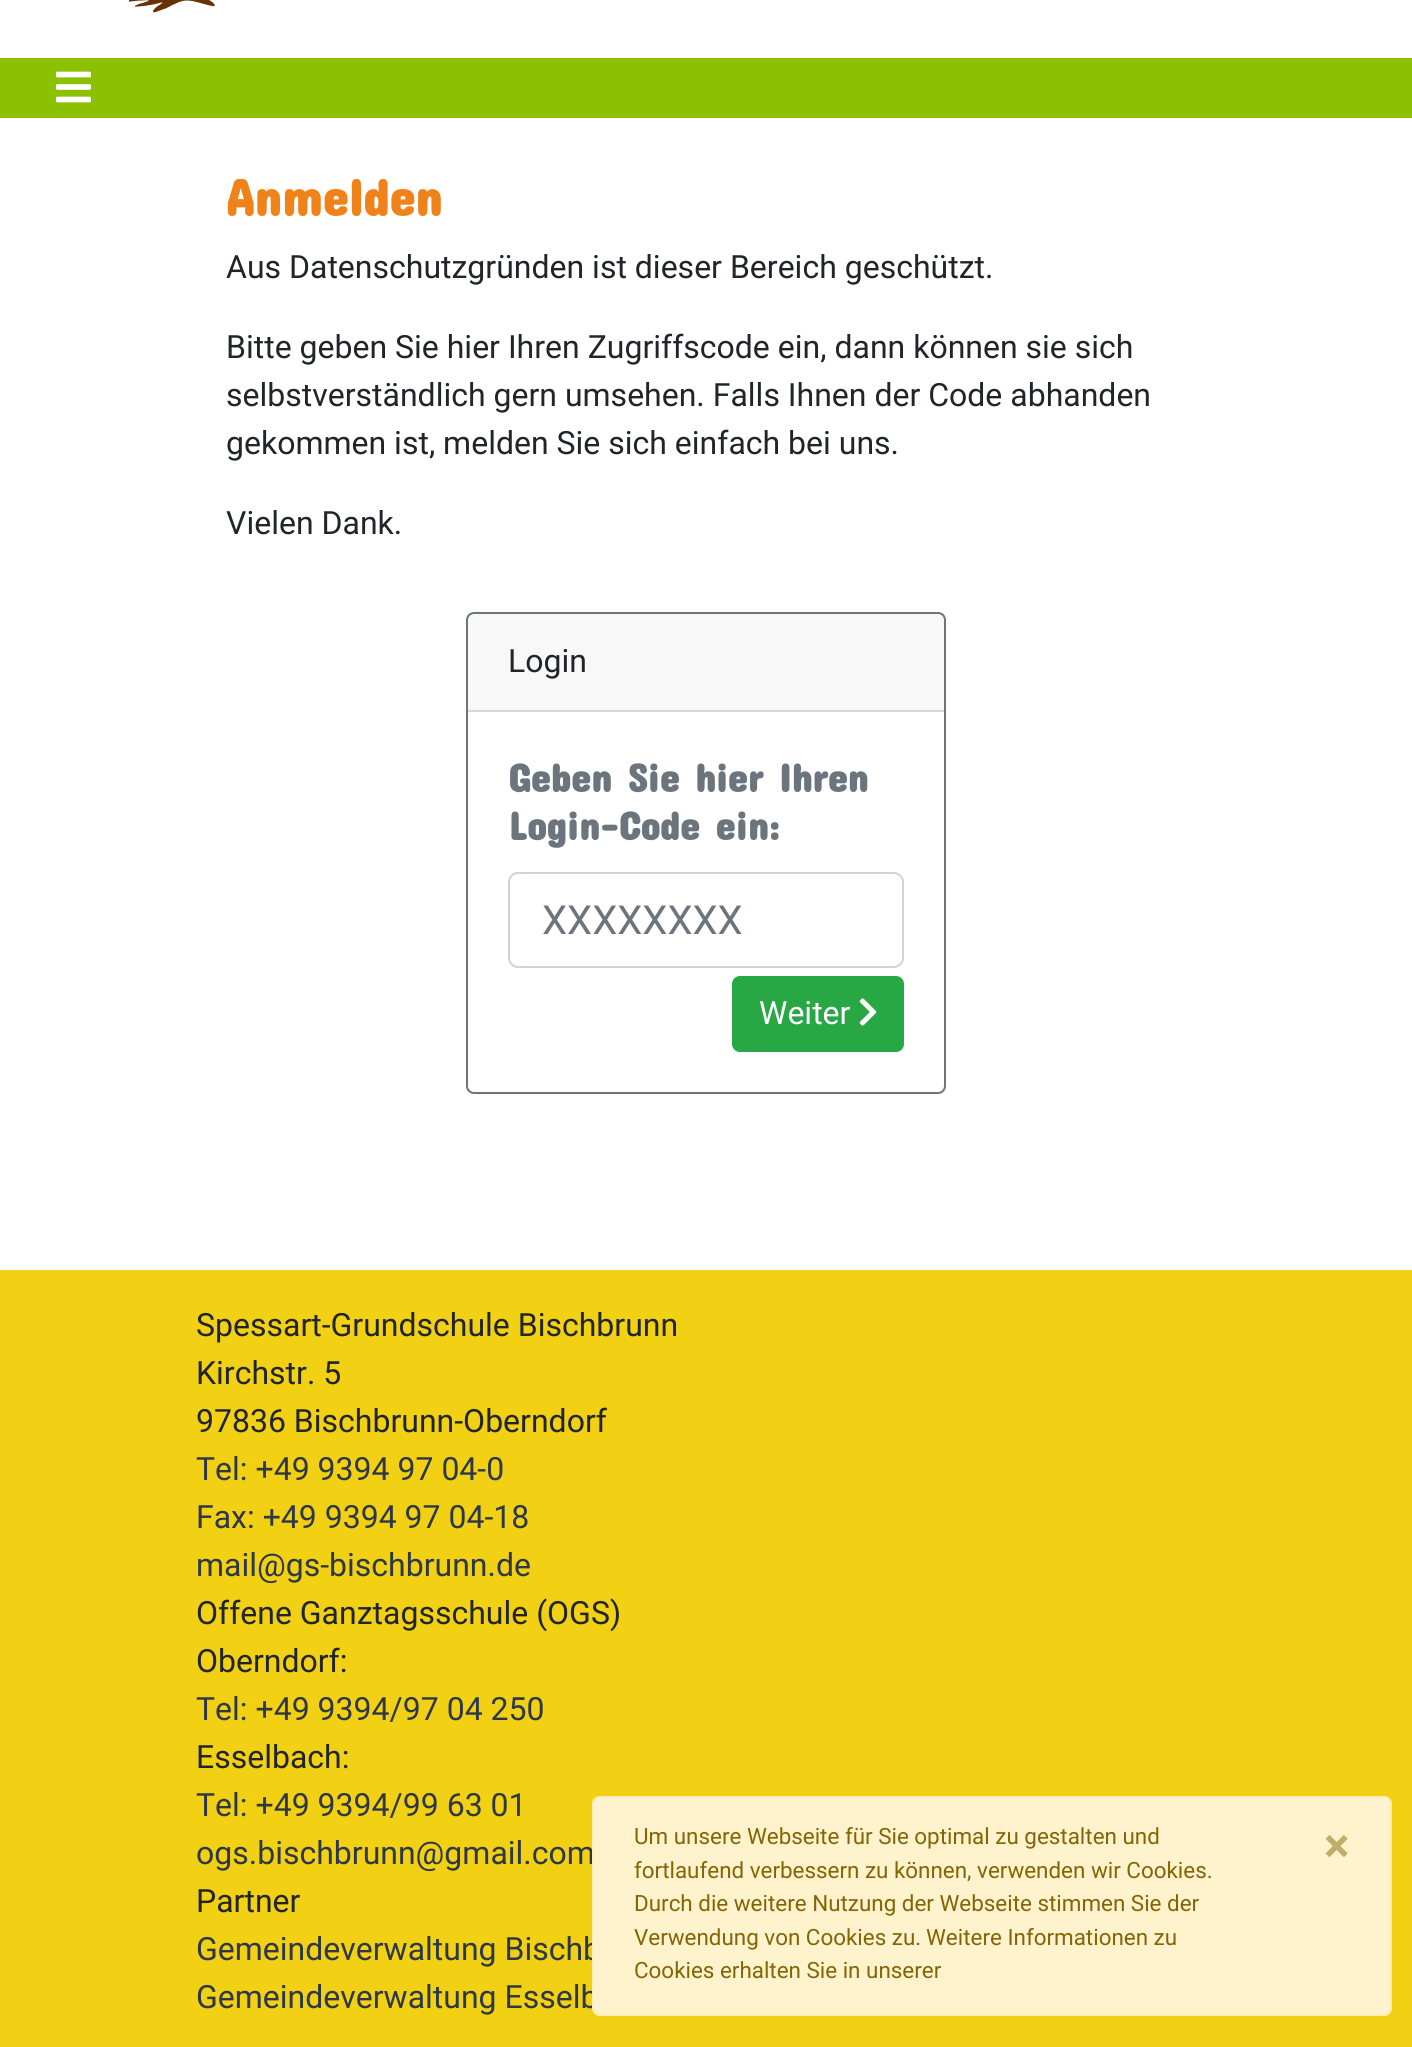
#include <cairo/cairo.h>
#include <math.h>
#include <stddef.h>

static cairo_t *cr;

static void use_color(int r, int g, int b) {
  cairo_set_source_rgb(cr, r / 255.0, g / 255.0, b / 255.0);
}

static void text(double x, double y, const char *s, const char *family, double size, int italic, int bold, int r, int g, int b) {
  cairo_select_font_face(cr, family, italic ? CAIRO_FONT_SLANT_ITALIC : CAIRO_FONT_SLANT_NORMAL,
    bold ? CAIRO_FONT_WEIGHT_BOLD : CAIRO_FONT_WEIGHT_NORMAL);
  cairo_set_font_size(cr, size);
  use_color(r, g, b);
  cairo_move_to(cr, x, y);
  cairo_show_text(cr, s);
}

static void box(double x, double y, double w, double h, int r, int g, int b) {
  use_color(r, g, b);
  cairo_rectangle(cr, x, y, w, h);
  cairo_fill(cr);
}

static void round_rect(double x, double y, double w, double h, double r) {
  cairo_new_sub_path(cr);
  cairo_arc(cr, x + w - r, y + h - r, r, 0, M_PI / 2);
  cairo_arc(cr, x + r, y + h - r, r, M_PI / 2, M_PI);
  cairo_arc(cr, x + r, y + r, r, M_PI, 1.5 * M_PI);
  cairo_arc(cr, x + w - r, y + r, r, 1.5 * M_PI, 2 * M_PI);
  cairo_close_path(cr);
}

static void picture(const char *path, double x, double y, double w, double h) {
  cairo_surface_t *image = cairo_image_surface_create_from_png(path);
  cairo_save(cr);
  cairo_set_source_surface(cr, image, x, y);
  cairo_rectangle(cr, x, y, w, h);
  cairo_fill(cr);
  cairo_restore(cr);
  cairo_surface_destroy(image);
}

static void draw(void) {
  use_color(255, 255, 255);
  cairo_paint(cr);
  box(0, 58, 1412, 60, 139, 193, 0);
  picture("img_01.png", 129, 0, 86, 13);
  picture("img_02.png", 56, 71, 35, 32);
  round_rect(467, 613, 478, 480, 7);
  use_color(108, 117, 125);
  cairo_stroke(cr);
  cairo_set_source_rgba(cr, 0, 0, 0, 0.03);
  cairo_rectangle(cr, 468, 614, 476, 96);
  cairo_fill(cr);
  box(468, 710, 476, 2, 216, 216, 216);
  round_rect(509, 873, 394, 94, 9);
  use_color(206, 212, 218);
  cairo_stroke(cr);
  use_color(40, 167, 69);
  round_rect(733, 977, 170, 74, 7);
  cairo_fill_preserve(cr);
  cairo_stroke(cr);
  picture("img_03.png", 859, 998, 18, 28);
  box(0, 1270, 1412, 777, 242, 208, 19);
  text(226, 216, "Anmelden", "Concert One", 52, 0, 1, 239, 131, 26);
  text(226, 278, "Aus Datenschutzgründen ist dieser Bereich geschützt.", "Roboto", 32, 0, 0, 33, 37, 41);
  text(226, 358, "Bitte geben Sie hier Ihren Zugriffscode ein, dann können sie sich", "Roboto", 32, 0, 0, 33, 37, 41);
  text(226, 406, "selbstverständlich gern umsehen. Falls Ihnen der Code abhanden", "Roboto", 32, 0, 0, 33, 37, 41);
  text(226, 454, "gekommen ist, melden Sie sich einfach bei uns.", "Roboto", 32, 0, 0, 33, 37, 41);
  text(226, 534, "Vielen Dank.", "Roboto", 32, 0, 0, 33, 37, 41);
  text(508, 672, "Login", "Roboto", 32, 0, 0, 33, 37, 41);
  text(508, 792, "Geben Sie hier Ihren", "Concert One", 40, 0, 1, 108, 117, 125);
  text(508, 840, "Login-Code ein:", "Concert One", 40, 0, 1, 108, 117, 125);
  text(542, 934, "XXXXXXXX", "Roboto", 40, 0, 0, 108, 117, 125);
  text(759, 1024, "Weiter", "Roboto", 32, 0, 0, 255, 255, 255);
  text(196, 1336, "Spessart-Grundschule Bischbrunn", "Roboto", 32, 0, 0, 33, 37, 41);
  text(196, 1384, "Kirchstr. 5", "Roboto", 32, 0, 0, 33, 37, 41);
  text(196, 1432, "97836 Bischbrunn-Oberndorf", "Roboto", 32, 0, 0, 33, 37, 41);
  text(196, 1480, "Tel: +49 9394 97 04-0", "Roboto", 32, 0, 0, 46, 56, 68);
  text(196, 1528, "Fax: +49 9394 97 04-18", "Roboto", 32, 0, 0, 46, 56, 68);
  text(196, 1576, "mail@gs-bischbrunn.de", "Roboto", 32, 0, 0, 46, 56, 68);
  text(196, 1624, "Offene Ganztagsschule (OGS)", "Roboto", 32, 0, 0, 33, 37, 41);
  text(196, 1672, "Oberndorf:", "Roboto", 32, 0, 0, 33, 37, 41);
  text(196, 1720, "Tel: +49 9394/97 04 250", "Roboto", 32, 0, 0, 46, 56, 68);
  text(196, 1768, "Esselbach:", "Roboto", 32, 0, 0, 33, 37, 41);
  text(196, 1816, "Tel: +49 9394/99 63 01", "Roboto", 32, 0, 0, 46, 56, 68);
  text(196, 1864, "ogs.bischbrunn@gmail.com", "Roboto", 32, 0, 0, 46, 56, 68);
  text(196, 1912, "Partner", "Roboto", 32, 0, 0, 33, 37, 41);
  text(196, 1960, "Gemeindeverwaltung Bischb", "Roboto", 32, 0, 0, 46, 56, 68);
  text(196, 2008, "Gemeindeverwaltung Esselb", "Roboto", 32, 0, 0, 46, 56, 68);
  use_color(255, 243, 205);
  round_rect(593, 1797, 798, 218, 7);
  cairo_fill_preserve(cr);
  use_color(255, 238, 186);
  cairo_stroke(cr);
  text(634, 1844, "Um unsere Webseite für Sie optimal zu gestalten und", "Roboto", 22.4, 0, 0, 133, 100, 4);
  text(1324, 1862, "×", "Roboto", 48, 0, 1, 194, 172, 105);
  text(634, 1878, "fortlaufend verbessern zu können, verwenden wir Cookies.", "Roboto", 22.4, 0, 0, 133, 100, 4);
  text(634, 1911, "Durch die weitere Nutzung der Webseite stimmen Sie der", "Roboto", 22.4, 0, 0, 133, 100, 4);
  text(634, 1945, "Verwendung von Cookies zu.", "Roboto", 22.4, 0, 0, 133, 100, 4);
  text(926, 1945, "Weitere Informationen zu", "Roboto", 22.4, 0, 0, 133, 100, 4);
  text(634, 1978, "Cookies erhalten Sie in unserer", "Roboto", 22.4, 0, 0, 133, 100, 4);
}

int main(void) {
  cairo_surface_t *surface = cairo_image_surface_create(CAIRO_FORMAT_RGB24, 1412, 2047);
  cr = cairo_create(surface);
  cairo_font_options_t *options = cairo_font_options_create();
  cairo_font_options_set_hint_metrics(options, CAIRO_HINT_METRICS_OFF);
  cairo_font_options_set_hint_style(options, CAIRO_HINT_STYLE_NONE);
  cairo_set_font_options(cr, options);
  cairo_set_miter_limit(cr, 4);
  draw();
  cairo_surface_write_to_png(surface, "out.png");
  cairo_font_options_destroy(options);
  cairo_destroy(cr);
  cairo_surface_destroy(surface);
  return 0;
}
